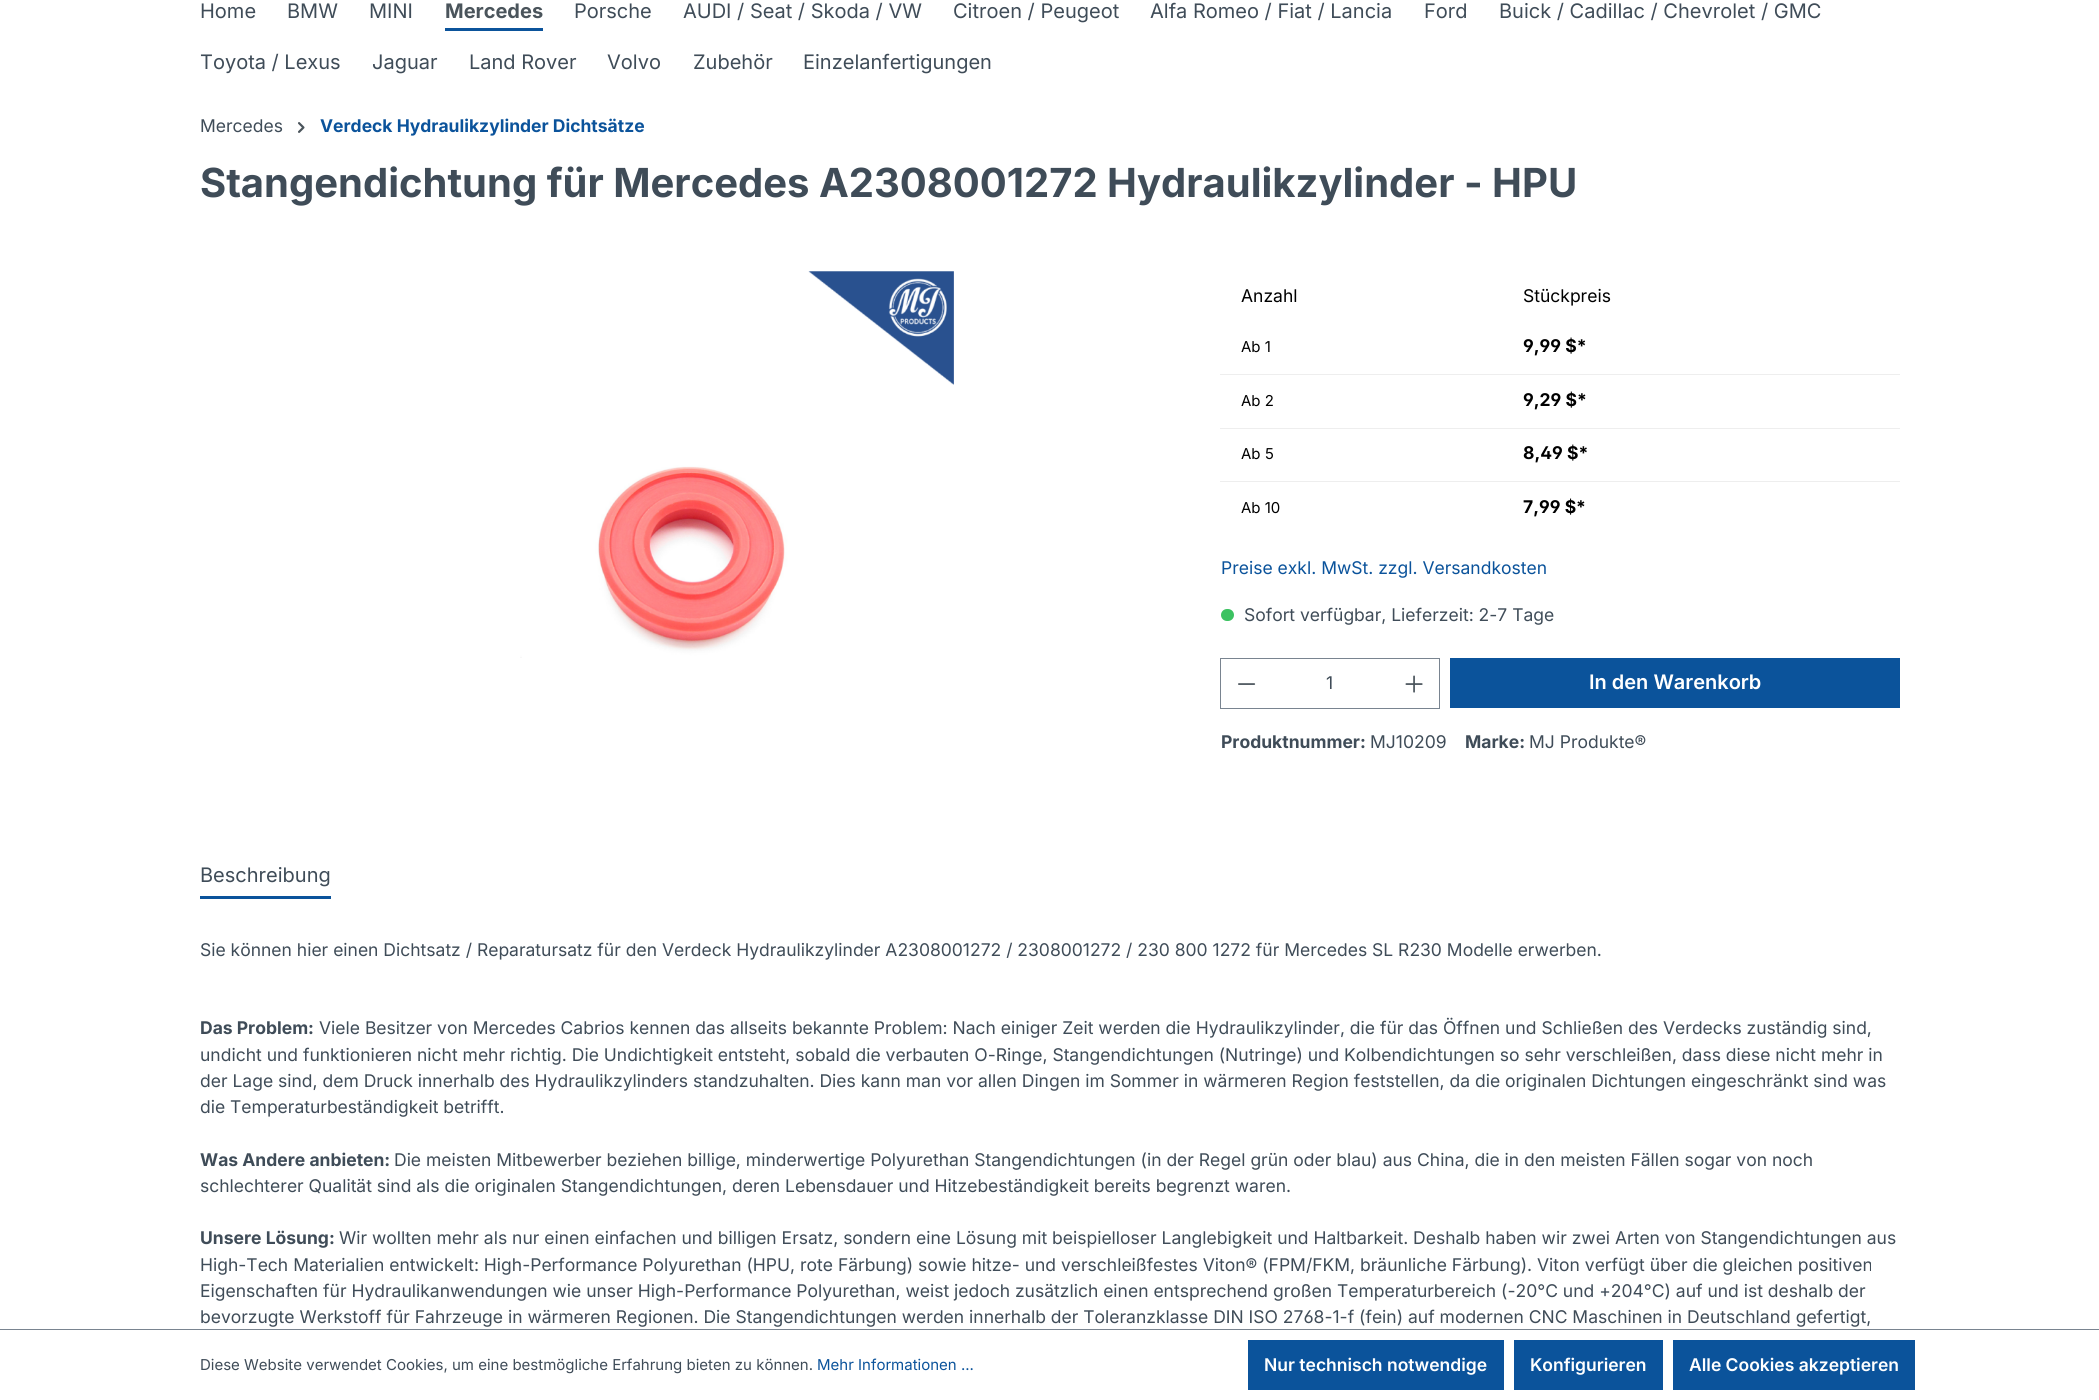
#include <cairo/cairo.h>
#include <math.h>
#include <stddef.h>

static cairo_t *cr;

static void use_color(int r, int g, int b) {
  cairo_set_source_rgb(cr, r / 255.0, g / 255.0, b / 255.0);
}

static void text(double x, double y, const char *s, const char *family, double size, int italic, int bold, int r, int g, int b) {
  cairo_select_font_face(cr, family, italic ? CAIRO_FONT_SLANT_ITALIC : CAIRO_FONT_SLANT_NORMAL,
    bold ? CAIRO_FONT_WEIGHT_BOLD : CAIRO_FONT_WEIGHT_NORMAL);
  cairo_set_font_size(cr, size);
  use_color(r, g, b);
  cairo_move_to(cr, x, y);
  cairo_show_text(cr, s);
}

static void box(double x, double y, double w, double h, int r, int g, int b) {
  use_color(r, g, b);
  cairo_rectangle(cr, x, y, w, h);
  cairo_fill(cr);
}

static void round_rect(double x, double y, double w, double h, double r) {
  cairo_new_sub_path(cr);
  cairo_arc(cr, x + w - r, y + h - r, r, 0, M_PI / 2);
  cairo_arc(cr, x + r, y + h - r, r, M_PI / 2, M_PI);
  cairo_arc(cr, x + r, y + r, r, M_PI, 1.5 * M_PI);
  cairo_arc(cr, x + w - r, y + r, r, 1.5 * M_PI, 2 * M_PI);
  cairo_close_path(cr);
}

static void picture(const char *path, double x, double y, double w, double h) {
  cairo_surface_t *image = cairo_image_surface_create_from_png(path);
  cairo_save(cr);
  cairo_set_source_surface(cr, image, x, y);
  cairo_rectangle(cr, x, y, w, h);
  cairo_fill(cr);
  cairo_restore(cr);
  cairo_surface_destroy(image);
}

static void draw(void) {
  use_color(255, 255, 255);
  cairo_paint(cr);
  box(445, 28, 98, 3, 11, 83, 155);
  picture("img_01.png", 298, 122, 7, 11);
  picture("img_02.png", 520, 271, 434, 387);
  box(1220, 374, 680, 1, 238, 238, 238);
  box(1220, 428, 680, 1, 238, 238, 238);
  box(1220, 481, 680, 1, 238, 238, 238);
  use_color(60, 194, 97);
  round_rect(1221, 609, 13, 12, 6);
  cairo_fill(cr);
  box(1220, 658, 220, 1, 121, 132, 144);
  box(1220, 708, 170, 1, 121, 132, 144);
  box(1220, 658, 1, 51, 121, 132, 144);
  picture("img_03.png", 1238, 683, 18, 2);
  box(1439, 658, 1, 51, 121, 132, 144);
  box(1389, 708, 51, 1, 121, 132, 144);
  picture("img_04.png", 1405, 675, 18, 18);
  box(1450, 658, 450, 50, 11, 83, 155);
  box(200, 896, 131, 3, 11, 83, 155);
  box(0, 1329, 2099, 1, 121, 132, 144);
  box(1248, 1340, 256, 50, 11, 83, 155);
  box(1514, 1340, 149, 50, 11, 83, 155);
  box(1673, 1340, 242, 50, 11, 83, 155);
  text(200, 18, "Home", "Inter", 20, 0, 0, 63, 76, 88);
  text(287, 18, "BMW", "Inter", 20, 0, 0, 63, 76, 88);
  text(369, 18, "MINI", "Inter", 20, 0, 0, 63, 76, 88);
  text(445, 18, "Mercedes", "Inter", 20, 0, 1, 74, 84, 91);
  text(574, 18, "Porsche", "Inter", 20, 0, 0, 63, 76, 88);
  text(683, 18, "AUDI / Seat / Skoda / VW", "Inter", 20, 0, 0, 63, 76, 88);
  text(953, 18, "Citroen / Peugeot", "Inter", 20, 0, 0, 63, 76, 88);
  text(1150, 18, "Alfa Romeo / Fiat / Lancia", "Inter", 20, 0, 0, 63, 76, 88);
  text(1424, 18, "Ford", "Inter", 20, 0, 0, 63, 76, 88);
  text(1499, 18, "Buick / Cadillac / Chevrolet / GMC", "Inter", 20, 0, 0, 63, 76, 88);
  text(200, 69, "Toyota / Lexus", "Inter", 20, 0, 0, 63, 76, 88);
  text(372, 69, "Jaguar", "Inter", 20, 0, 0, 63, 76, 88);
  text(469, 69, "Land Rover", "Inter", 20, 0, 0, 63, 76, 88);
  text(607, 69, "Volvo", "Inter", 20, 0, 0, 63, 76, 88);
  text(693, 69, "Zubehör", "Inter", 20, 0, 0, 63, 76, 88);
  text(803, 69, "Einzelanfertigungen", "Inter", 20, 0, 0, 63, 76, 88);
  text(200, 132, "Mercedes", "Inter", 17.5, 0, 0, 63, 76, 88);
  text(320, 132, "Verdeck Hydraulikzylinder Dichtsätze", "Inter", 17.5, 0, 1, 11, 83, 155);
  text(200, 197, "Stangendichtung für Mercedes A2308001272 Hydraulikzylinder - HPU", "Inter", 40, 0, 1, 63, 76, 88);
  text(1241, 302, "Anzahl", "Inter", 17.5, 0, 0, 0, 0, 0);
  text(1523, 302, "Stückpreis", "Inter", 17.5, 0, 0, 0, 0, 0);
  text(1241, 352, "Ab 1", "Inter", 15, 0, 0, 0, 0, 0);
  text(1523, 352, "9,99 $*", "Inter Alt", 17.5, 0, 1, 0, 0, 0);
  text(1241, 406, "Ab 2", "Inter", 15, 0, 0, 0, 0, 0);
  text(1523, 406, "9,29 $*", "Inter Alt", 17.5, 0, 1, 0, 0, 0);
  text(1241, 459, "Ab 5", "Inter", 15, 0, 0, 0, 0, 0);
  text(1523, 459, "8,49 $*", "Inter Alt", 17.5, 0, 1, 0, 0, 0);
  text(1241, 513, "Ab 10", "Inter", 15, 0, 0, 0, 0, 0);
  text(1523, 513, "7,99 $*", "Inter Alt", 17.5, 0, 1, 0, 0, 0);
  text(1221, 574, "Preise exkl. MwSt. zzgl. Versandkosten", "Inter", 17.5, 0, 0, 11, 83, 155);
  text(1244, 621, "Sofort verfügbar, Lieferzeit: 2-7 Tage", "Inter", 17.5, 0, 0, 63, 76, 88);
  text(1326, 689, "1", "Inter", 17.5, 0, 0, 63, 76, 88);
  text(1589, 689, "In den Warenkorb", "Inter SemiBold", 20, 0, 0, 255, 255, 255);
  text(1221, 748, "Produktnummer:", "Inter", 17.5, 0, 1, 63, 76, 88);
  text(1370, 748, "MJ10209", "Inter", 17.5, 0, 0, 63, 76, 88);
  text(1465, 748, "Marke:", "Inter", 17.5, 0, 1, 63, 76, 88);
  text(1529, 748, "MJ Produkte®", "Inter", 17.5, 0, 0, 63, 76, 88);
  text(200, 882, "Beschreibung", "Inter", 20, 0, 0, 63, 76, 88);
  text(200, 956, "Sie können hier einen Dichtsatz / Reparatursatz für den Verdeck Hydraulikzylinder A2308001272 / 2308001272 / 230 800 1272 für Mercedes SL R230 Modelle erwerben.", "Inter", 17.5, 0, 0, 63, 76, 88);
  text(200, 1034, "Das Problem:", "Inter", 17.5, 0, 1, 63, 76, 88);
  text(319, 1034, "Viele Besitzer von Mercedes Cabrios kennen das allseits bekannte Problem: Nach einiger Zeit werden die Hydraulikzylinder, die für das Öffnen und Schließen des Verdecks zuständig sind,", "Inter", 17.5, 0, 0, 63, 76, 88);
  text(200, 1061, "undicht und funktionieren nicht mehr richtig. Die Undichtigkeit entsteht, sobald die verbauten O-Ringe, Stangendichtungen (Nutringe) und Kolbendichtungen so sehr verschleißen, dass diese nicht mehr in", "Inter", 17.5, 0, 0, 63, 76, 88);
  text(200, 1087, "der Lage sind, dem Druck innerhalb des Hydraulikzylinders standzuhalten. Dies kann man vor allen Dingen im Sommer in wärmeren Region feststellen, da die originalen Dichtungen eingeschränkt sind was", "Inter", 17.5, 0, 0, 63, 76, 88);
  text(200, 1113, "die Temperaturbeständigkeit betrifft.", "Inter", 17.5, 0, 0, 63, 76, 88);
  text(200, 1166, "Was Andere anbieten:", "Inter", 17.5, 0, 1, 63, 76, 88);
  text(394, 1166, "Die meisten Mitbewerber beziehen billige, minderwertige Polyurethan Stangendichtungen (in der Regel grün oder blau) aus China, die in den meisten Fällen sogar von noch", "Inter", 17.5, 0, 0, 63, 76, 88);
  text(200, 1192, "schlechterer Qualität sind als die originalen Stangendichtungen, deren Lebensdauer und Hitzebeständigkeit bereits begrenzt waren.", "Inter", 17.5, 0, 0, 63, 76, 88);
  text(200, 1244, "Unsere Lösung:", "Inter", 17.5, 0, 1, 63, 76, 88);
  text(339, 1244, "Wir wollten mehr als nur einen einfachen und billigen Ersatz, sondern eine Lösung mit beispielloser Langlebigkeit und Haltbarkeit. Deshalb haben wir zwei Arten von Stangendichtungen aus", "Inter", 17.5, 0, 0, 63, 76, 88);
  text(200, 1271, "High-Tech Materialien entwickelt: High-Performance Polyurethan (HPU, rote Färbung) sowie hitze- und verschleißfestes Viton® (FPM/FKM, bräunliche Färbung). Viton verfügt über die gleichen positiven", "Inter", 17.5, 0, 0, 63, 76, 88);
  text(200, 1297, "Eigenschaften für Hydraulikanwendungen wie unser High-Performance Polyurethan, weist jedoch zusätzlich einen entsprechend großen Temperaturbereich (-20°C und +204°C) auf und ist deshalb der", "Inter", 17.5, 0, 0, 63, 76, 88);
  text(200, 1323, "bevorzugte Werkstoff für Fahrzeuge in wärmeren Regionen. Die Stangendichtungen werden innerhalb der Toleranzklasse DIN ISO 2768-1-f (fein) auf modernen CNC Maschinen in Deutschland gefertigt,", "Inter Alt", 17.5, 0, 0, 63, 76, 88);
  text(200, 1370, "Diese Website verwendet Cookies, um eine bestmögliche Erfahrung bieten zu können.", "Inter", 15, 0, 0, 63, 76, 88);
  text(817, 1370, "Mehr Informationen ...", "Inter", 15, 0, 0, 11, 83, 155);
  text(1264, 1371, "Nur technisch notwendige", "Inter SemiBold", 17.5, 0, 0, 255, 255, 255);
  text(1530, 1371, "Konfigurieren", "Inter SemiBold", 17.5, 0, 0, 255, 255, 255);
  text(1689, 1371, "Alle Cookies akzeptieren", "Inter SemiBold", 17.5, 0, 0, 255, 255, 255);
}

int main(void) {
  cairo_surface_t *surface = cairo_image_surface_create(CAIRO_FORMAT_RGB24, 2099, 1400);
  cr = cairo_create(surface);
  cairo_font_options_t *options = cairo_font_options_create();
  cairo_font_options_set_hint_metrics(options, CAIRO_HINT_METRICS_OFF);
  cairo_font_options_set_hint_style(options, CAIRO_HINT_STYLE_NONE);
  cairo_set_font_options(cr, options);
  cairo_set_miter_limit(cr, 4);
  draw();
  cairo_surface_write_to_png(surface, "out.png");
  cairo_font_options_destroy(options);
  cairo_destroy(cr);
  cairo_surface_destroy(surface);
  return 0;
}
